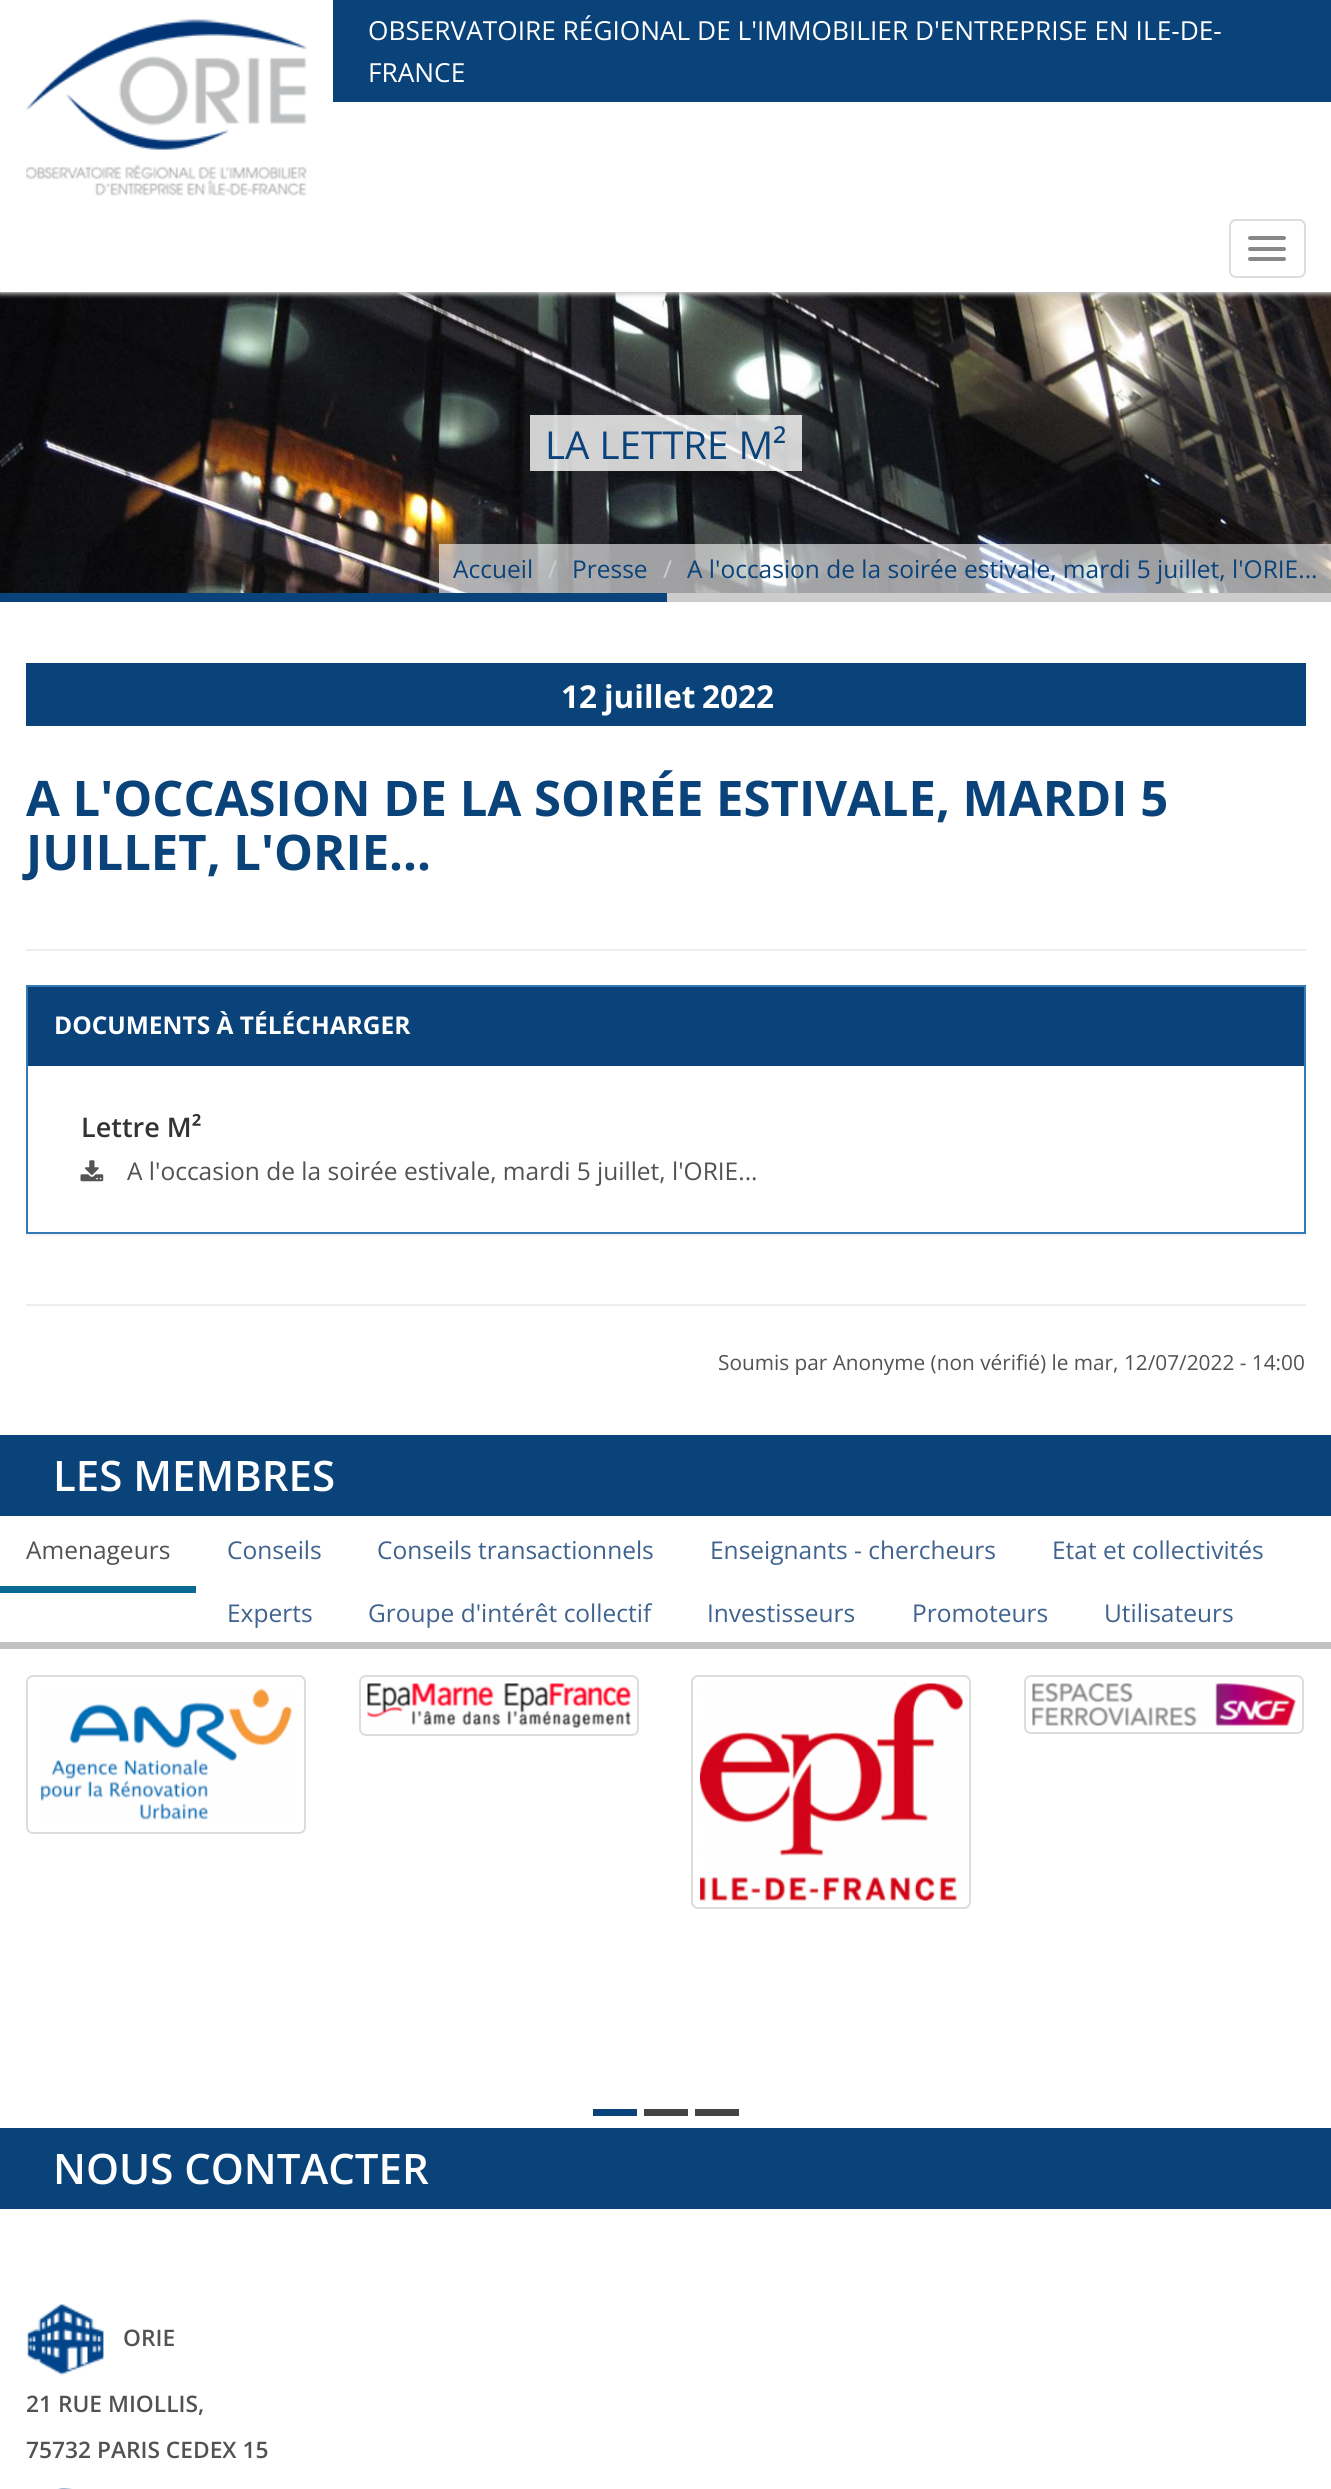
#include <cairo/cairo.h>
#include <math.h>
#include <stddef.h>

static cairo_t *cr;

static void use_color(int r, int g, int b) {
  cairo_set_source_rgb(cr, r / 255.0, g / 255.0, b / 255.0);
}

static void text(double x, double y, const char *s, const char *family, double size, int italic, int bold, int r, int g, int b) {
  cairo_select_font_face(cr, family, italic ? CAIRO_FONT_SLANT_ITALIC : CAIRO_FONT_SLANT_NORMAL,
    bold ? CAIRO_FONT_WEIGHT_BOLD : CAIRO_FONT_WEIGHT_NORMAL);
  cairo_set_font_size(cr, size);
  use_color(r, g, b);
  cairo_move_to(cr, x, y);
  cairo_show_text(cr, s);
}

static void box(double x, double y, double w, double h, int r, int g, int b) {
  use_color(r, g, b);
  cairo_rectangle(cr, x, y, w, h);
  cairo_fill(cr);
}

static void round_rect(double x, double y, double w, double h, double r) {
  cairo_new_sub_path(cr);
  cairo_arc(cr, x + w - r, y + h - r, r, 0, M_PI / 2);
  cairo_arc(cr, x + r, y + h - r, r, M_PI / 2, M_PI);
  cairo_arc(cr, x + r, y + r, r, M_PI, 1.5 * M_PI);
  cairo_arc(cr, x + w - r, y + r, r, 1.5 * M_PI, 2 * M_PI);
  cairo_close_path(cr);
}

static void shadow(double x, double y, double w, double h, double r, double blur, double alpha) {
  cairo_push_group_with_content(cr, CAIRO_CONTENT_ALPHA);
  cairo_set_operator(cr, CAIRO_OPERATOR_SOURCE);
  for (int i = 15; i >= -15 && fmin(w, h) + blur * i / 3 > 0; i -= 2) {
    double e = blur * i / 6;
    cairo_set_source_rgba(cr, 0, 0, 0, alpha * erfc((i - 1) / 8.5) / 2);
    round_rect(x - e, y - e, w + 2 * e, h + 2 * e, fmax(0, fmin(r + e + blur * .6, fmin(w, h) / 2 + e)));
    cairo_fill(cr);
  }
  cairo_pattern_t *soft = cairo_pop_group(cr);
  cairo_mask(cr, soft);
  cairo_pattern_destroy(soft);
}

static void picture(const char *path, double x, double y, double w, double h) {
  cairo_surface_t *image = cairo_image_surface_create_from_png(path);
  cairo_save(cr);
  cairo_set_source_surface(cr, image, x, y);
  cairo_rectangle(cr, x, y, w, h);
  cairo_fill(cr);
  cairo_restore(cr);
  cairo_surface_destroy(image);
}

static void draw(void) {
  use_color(255, 255, 255);
  cairo_paint(cr);
  picture("img_02.png", 0, 292, 1331, 301);
  cairo_save(cr);
  cairo_rectangle(cr, 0, 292, 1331, 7);
  cairo_clip(cr);
  use_color(194, 195, 193);
  shadow(0, 2, 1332, 292, 0, 2.5, 1);
  cairo_restore(cr);
  picture("img_01.png", 26, 19, 281, 177);
  box(333, 0, 998, 102, 10, 66, 122);
  round_rect(1230, 220, 75, 57, 6);
  use_color(221, 221, 221);
  cairo_stroke(cr);
  use_color(136, 136, 136);
  round_rect(1248, 236, 38, 4, 2);
  cairo_fill(cr);
  round_rect(1248, 247, 38, 4, 2);
  cairo_fill(cr);
  round_rect(1248, 257, 38, 4, 2);
  cairo_fill(cr);
  cairo_set_source_rgba(cr, 1, 1, 1, 0.8);
  cairo_rectangle(cr, 530, 415, 272, 56);
  cairo_fill(cr);
  cairo_set_source_rgba(cr, 1, 1, 1, 0.6);
  cairo_rectangle(cr, 439, 544, 892, 49);
  cairo_fill(cr);
  box(0, 593, 667, 9, 10, 66, 122);
  box(667, 593, 664, 9, 204, 204, 204);
  box(26, 663, 1280, 63, 10, 66, 122);
  box(26, 949, 1280, 2, 238, 238, 238);
  use_color(0, 0, 0);
  shadow(26, 987, 1280, 249, 0, 1, 0.05);
  box(28, 1066, 1276, 166, 255, 255, 255);
  cairo_rectangle(cr, 27, 986, 1278, 247);
  use_color(51, 122, 183);
  cairo_stroke(cr);
  box(28, 987, 1276, 79, 10, 66, 122);
  picture("img_03.png", 80, 1160, 24, 22);
  box(26, 1304, 1280, 2, 238, 238, 238);
  box(0, 1435, 1331, 81, 10, 66, 122);
  box(0, 1642, 1331, 7, 194, 195, 193);
  box(0, 1586, 196, 7, 10, 105, 147);
  round_rect(27, 1676, 278, 157, 6);
  use_color(221, 221, 221);
  cairo_stroke(cr);
  picture("img_04.png", 40, 1688, 252, 132);
  round_rect(360, 1676, 278, 59, 6);
  cairo_stroke(cr);
  picture("img_05.png", 367, 1683, 264, 45);
  round_rect(692, 1676, 278, 232, 6);
  cairo_stroke(cr);
  picture("img_06.png", 700, 1683, 263, 218);
  round_rect(1025, 1676, 278, 57, 6);
  cairo_stroke(cr);
  picture("img_07.png", 1032, 1683, 264, 43);
  box(593, 2109, 44, 7, 10, 66, 122);
  box(644, 2109, 44, 7, 67, 67, 67);
  box(695, 2109, 44, 7, 67, 67, 67);
  box(0, 2128, 1331, 81, 10, 66, 122);
  picture("img_08.png", 27, 2304, 77, 72);
  picture("img_09.png", 58, 2488, 14, 1);
  text(368, 40, "OBSERVATOIRE RÉGIONAL DE L'IMMOBILIER D'ENTREPRISE EN ILE-DE-", "Open Sans", 26.25, 0, 0, 255, 255, 255);
  text(368, 82, "FRANCE", "Open Sans", 26.25, 0, 0, 255, 255, 255);
  text(545, 459, "LA LETTRE M²", "Open Sans", 38.5, 0, 0, 10, 66, 122);
  text(453, 578, "Accueil", "Open Sans", 24.5, 0, 0, 10, 66, 122);
  text(548, 578, "/", "Open Sans", 24.5, 0, 0, 204, 204, 204);
  text(572, 578, "Presse", "Open Sans", 24.5, 0, 0, 10, 66, 122);
  text(663, 578, "/", "Open Sans", 24.5, 0, 0, 204, 204, 204);
  text(687, 578, "A l'occasion de la soirée estivale, mardi 5 juillet, l'ORIE...", "Open Sans", 24.5, 0, 0, 10, 66, 122);
  text(561, 708, "12", "Open Sans", 31.5, 0, 1, 255, 255, 255);
  text(604, 708, "juillet", "Open Sans", 31.5, 0, 1, 255, 255, 255);
  text(702, 708, "2022", "Open Sans", 31.5, 0, 1, 255, 255, 255);
  text(26, 816, "A L'OCCASION DE LA SOIRÉE ESTIVALE, MARDI 5", "Open Sans", 49, 0, 1, 10, 66, 122);
  text(26, 870, "JUILLET, L'ORIE...", "Open Sans", 49, 0, 1, 10, 66, 122);
  text(54, 1034, "DOCUMENTS À TÉLÉCHARGER", "Open Sans", 24.5, 0, 1, 255, 255, 255);
  text(81, 1137, "Lettre M²", "Open Sans SemiBold", 27, 0, 0, 51, 51, 51);
  text(127, 1180, "A l'occasion de la soirée estivale, mardi 5 juillet, l'ORIE...", "Open Sans", 24.5, 0, 0, 82, 82, 82);
  text(718, 1370, "Soumis par Anonyme (non vérifié) le mar, 12/07/2022 - 14:00", "Open Sans", 20.8, 0, 0, 82, 82, 82);
  text(53, 1491, "LES MEMBRES", "Open Sans SemiBold", 42, 0, 0, 255, 255, 255);
  text(26, 1559, "Amenageurs", "Open Sans", 24.5, 0, 0, 82, 82, 82);
  text(227, 1559, "Conseils", "Open Sans", 24.5, 0, 0, 63, 99, 142);
  text(377, 1559, "Conseils transactionnels", "Open Sans", 24.5, 0, 0, 63, 99, 142);
  text(710, 1559, "Enseignants - chercheurs", "Open Sans", 24.5, 0, 0, 63, 99, 142);
  text(1052, 1559, "Etat et collectivités", "Open Sans", 24.5, 0, 0, 63, 99, 142);
  text(227, 1622, "Experts", "Open Sans", 24.5, 0, 0, 63, 99, 142);
  text(368, 1622, "Groupe d'intérêt collectif", "Open Sans", 24.5, 0, 0, 63, 99, 142);
  text(707, 1622, "Investisseurs", "Open Sans", 24.5, 0, 0, 63, 99, 142);
  text(912, 1622, "Promoteurs", "Open Sans", 24.5, 0, 0, 63, 99, 142);
  text(1104, 1622, "Utilisateurs", "Open Sans", 24.5, 0, 0, 63, 99, 142);
  text(53, 2184, "NOUS CONTACTER", "Open Sans SemiBold", 42, 0, 0, 255, 255, 255);
  text(123, 2346, "ORIE", "Open Sans SemiBold", 22.75, 0, 0, 82, 82, 82);
  text(26, 2412, "21 RUE MIOLLIS,", "Open Sans SemiBold", 22.75, 0, 0, 82, 82, 82);
  text(26, 2458, "75732 PARIS CEDEX 15", "Open Sans SemiBold", 22.75, 0, 0, 82, 82, 82);
}

int main(void) {
  cairo_surface_t *surface = cairo_image_surface_create(CAIRO_FORMAT_RGB24, 1331, 2489);
  cr = cairo_create(surface);
  cairo_font_options_t *options = cairo_font_options_create();
  cairo_font_options_set_hint_metrics(options, CAIRO_HINT_METRICS_OFF);
  cairo_font_options_set_hint_style(options, CAIRO_HINT_STYLE_NONE);
  cairo_set_font_options(cr, options);
  cairo_set_miter_limit(cr, 4);
  draw();
  cairo_surface_write_to_png(surface, "out.png");
  cairo_font_options_destroy(options);
  cairo_destroy(cr);
  cairo_surface_destroy(surface);
  return 0;
}
